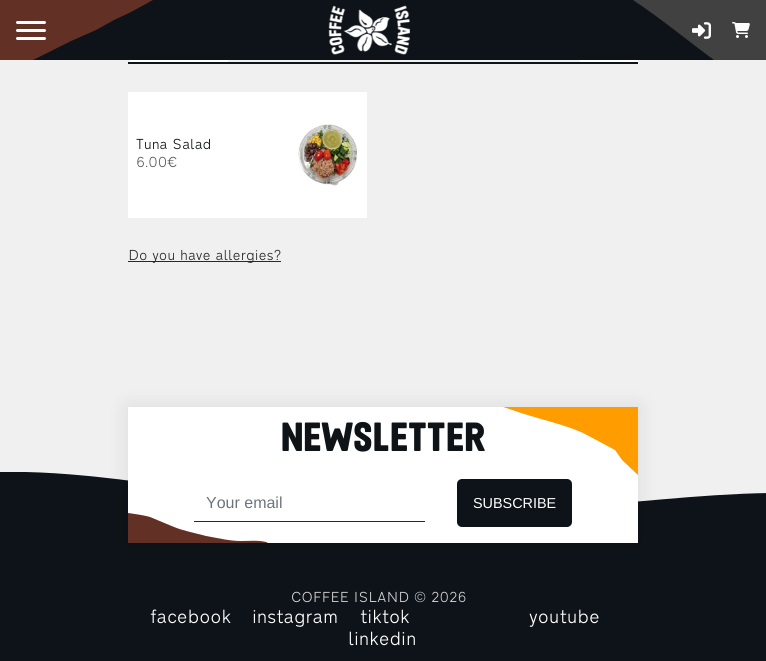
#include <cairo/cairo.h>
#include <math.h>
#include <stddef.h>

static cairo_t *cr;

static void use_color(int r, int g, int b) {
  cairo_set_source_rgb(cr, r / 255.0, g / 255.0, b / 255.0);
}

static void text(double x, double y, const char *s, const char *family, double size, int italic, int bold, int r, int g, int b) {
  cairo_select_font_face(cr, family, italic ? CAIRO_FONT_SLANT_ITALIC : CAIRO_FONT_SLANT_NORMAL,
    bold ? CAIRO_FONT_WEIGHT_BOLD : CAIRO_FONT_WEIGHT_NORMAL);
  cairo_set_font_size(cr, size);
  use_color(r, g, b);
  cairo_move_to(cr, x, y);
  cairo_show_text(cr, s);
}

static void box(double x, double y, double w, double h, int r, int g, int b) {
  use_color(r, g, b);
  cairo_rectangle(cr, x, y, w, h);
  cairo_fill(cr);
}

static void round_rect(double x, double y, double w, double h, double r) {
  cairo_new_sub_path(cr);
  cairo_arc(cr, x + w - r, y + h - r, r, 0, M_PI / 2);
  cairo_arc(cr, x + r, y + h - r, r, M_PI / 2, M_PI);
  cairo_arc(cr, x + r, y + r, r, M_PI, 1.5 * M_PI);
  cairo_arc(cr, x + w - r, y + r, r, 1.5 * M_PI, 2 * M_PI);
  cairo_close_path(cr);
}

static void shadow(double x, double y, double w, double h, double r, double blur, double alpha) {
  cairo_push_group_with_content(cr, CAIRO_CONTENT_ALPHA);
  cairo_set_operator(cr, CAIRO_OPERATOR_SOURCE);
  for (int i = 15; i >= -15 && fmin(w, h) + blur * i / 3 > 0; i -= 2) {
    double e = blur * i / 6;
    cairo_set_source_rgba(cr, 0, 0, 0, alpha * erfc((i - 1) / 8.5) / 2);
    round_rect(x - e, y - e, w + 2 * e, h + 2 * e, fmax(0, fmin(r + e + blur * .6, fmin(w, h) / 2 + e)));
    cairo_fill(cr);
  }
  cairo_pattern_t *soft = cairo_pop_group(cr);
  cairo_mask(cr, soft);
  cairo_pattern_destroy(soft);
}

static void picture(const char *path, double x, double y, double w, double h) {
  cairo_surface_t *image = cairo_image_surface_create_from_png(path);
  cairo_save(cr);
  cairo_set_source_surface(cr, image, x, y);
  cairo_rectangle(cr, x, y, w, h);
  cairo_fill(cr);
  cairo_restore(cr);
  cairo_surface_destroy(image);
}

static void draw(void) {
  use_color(240, 240, 240);
  cairo_paint(cr);
  box(33, 0, 681, 60, 14, 19, 25);
  use_color(99, 48, 37);
  cairo_new_path(cr);
  cairo_move_to(cr, 33, 60);
  cairo_line_to(cr, -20, 60);
  cairo_line_to(cr, -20, 0);
  cairo_line_to(cr, 153, 0);
  cairo_line_to(cr, 131, 12);
  cairo_line_to(cr, 114, 20);
  cairo_line_to(cr, 96, 30);
  cairo_line_to(cr, 71, 41);
  cairo_close_path(cr);
  cairo_fill(cr);
  use_color(65, 65, 65);
  cairo_new_path(cr);
  cairo_move_to(cr, 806, 0);
  cairo_line_to(cr, 633, 0);
  cairo_curve_to(cr, 663, 20, 688, 41, 714, 60);
  cairo_line_to(cr, 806, 60);
  cairo_close_path(cr);
  cairo_fill(cr);
  use_color(255, 255, 255);
  round_rect(16, 29, 30, 3, 1.5);
  cairo_fill(cr);
  round_rect(16, 21, 30, 3, 1.5);
  cairo_fill(cr);
  round_rect(16, 37, 30, 3, 1.5);
  cairo_fill(cr);
  picture("img_01.png", 328, 5, 82, 50);
  picture("img_02.png", 692, 22, 19, 17);
  picture("img_03.png", 732, 22, 18, 16);
  box(128, 62, 510, 2, 14, 19, 23);
  box(130, 60, 98, 2, 255, 255, 255);
  box(580, 60, 58, 2, 255, 255, 255);
  box(128, 92, 239, 126, 255, 255, 255);
  picture("img_04.png", 298, 124, 59, 62);
  box(128, 261, 153, 1, 41, 41, 41);
  cairo_save(cr);
  cairo_rectangle(cr, 0, 472, 766, 51);
  cairo_clip(cr);
  use_color(14, 19, 25);
  cairo_new_path(cr);
  cairo_move_to(cr, 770, 524);
  cairo_line_to(cr, 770, 493);
  cairo_curve_to(cr, 698, 494, 626, 504, 553, 508);
  cairo_curve_to(cr, 512, 510, 471, 510, 430, 508);
  cairo_line_to(cr, 347, 503);
  cairo_curve_to(cr, 309, 501, 271, 498, 233, 494);
  cairo_curve_to(cr, 154, 485, 76, 470, -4, 472);
  cairo_line_to(cr, -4, 524);
  cairo_close_path(cr);
  cairo_fill(cr);
  cairo_restore(cr);
  box(0, 523, 766, 138, 14, 19, 25);
  use_color(0, 0, 0);
  shadow(128, 407, 510, 136, 0, 10, 0.1);
  box(128, 407, 510, 136, 255, 255, 255);
  use_color(99, 48, 37);
  cairo_new_path(cr);
  cairo_move_to(cr, 266, 542);
  cairo_curve_to(cr, 258, 540, 249, 541, 241, 541);
  cairo_curve_to(cr, 229, 541, 218, 538, 206, 536);
  cairo_curve_to(cr, 195, 533, 184, 531, 174, 527);
  cairo_line_to(cr, 150, 517);
  cairo_curve_to(cr, 143, 515, 135, 514, 128, 513);
  cairo_line_to(cr, 128, 543);
  cairo_line_to(cr, 268, 543);
  cairo_close_path(cr);
  cairo_fill(cr);
  box(194, 521, 231, 1, 41, 41, 41);
  use_color(14, 19, 25);
  round_rect(457, 479, 115, 48, 5);
  cairo_fill(cr);
  use_color(255, 156, 0);
  cairo_new_path(cr);
  cairo_move_to(cr, 521, 413);
  cairo_line_to(cr, 541, 419);
  cairo_curve_to(cr, 555, 423, 570, 427, 583, 433);
  cairo_line_to(cr, 615, 450);
  cairo_line_to(cr, 622, 460);
  cairo_line_to(cr, 638, 475);
  cairo_line_to(cr, 638, 407);
  cairo_line_to(cr, 503, 407);
  cairo_close_path(cr);
  cairo_fill(cr);
  text(136, 149, "Tuna Salad", "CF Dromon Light", 14.4, 0, 0, 14, 19, 23);
  text(136, 167, "6.00€", "CF Dromon Light", 14.4, 0, 0, 89, 89, 89);
  text(128, 260, "Do you have allergies?", "CF Dromon Light", 14.4, 0, 0, 41, 41, 41);
  text(281, 451, "NEWSLETTER", "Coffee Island", 40, 0, 0, 14, 19, 23);
  text(206, 508, "Your email", "Liberation Sans", 16, 0, 0, 108, 117, 125);
  text(473, 508, "SUBSCRIBE", "Liberation Sans", 14.4, 0, 0, 255, 255, 255);
  text(291, 602, "COFFEE ISLAND © 2026", "CF Dromon Light", 14.4, 0, 0, 214, 214, 214);
  text(150, 623, "facebook", "CF Dromon Light", 19, 0, 0, 255, 255, 255);
  text(252, 623, "instagram", "CF Dromon Light", 19, 0, 0, 255, 255, 255);
  text(360, 623, "tiktok", "CF Dromon Light", 19, 0, 0, 255, 255, 255);
  text(529, 623, "youtube", "CF Dromon Light", 19, 0, 0, 255, 255, 255);
  text(348, 645, "linkedin", "CF Dromon Light", 19, 0, 0, 255, 255, 255);
}

int main(void) {
  cairo_surface_t *surface = cairo_image_surface_create(CAIRO_FORMAT_RGB24, 766, 661);
  cr = cairo_create(surface);
  cairo_font_options_t *options = cairo_font_options_create();
  cairo_font_options_set_hint_metrics(options, CAIRO_HINT_METRICS_OFF);
  cairo_font_options_set_hint_style(options, CAIRO_HINT_STYLE_NONE);
  cairo_set_font_options(cr, options);
  cairo_set_miter_limit(cr, 4);
  draw();
  cairo_surface_write_to_png(surface, "out.png");
  cairo_font_options_destroy(options);
  cairo_destroy(cr);
  cairo_surface_destroy(surface);
  return 0;
}
